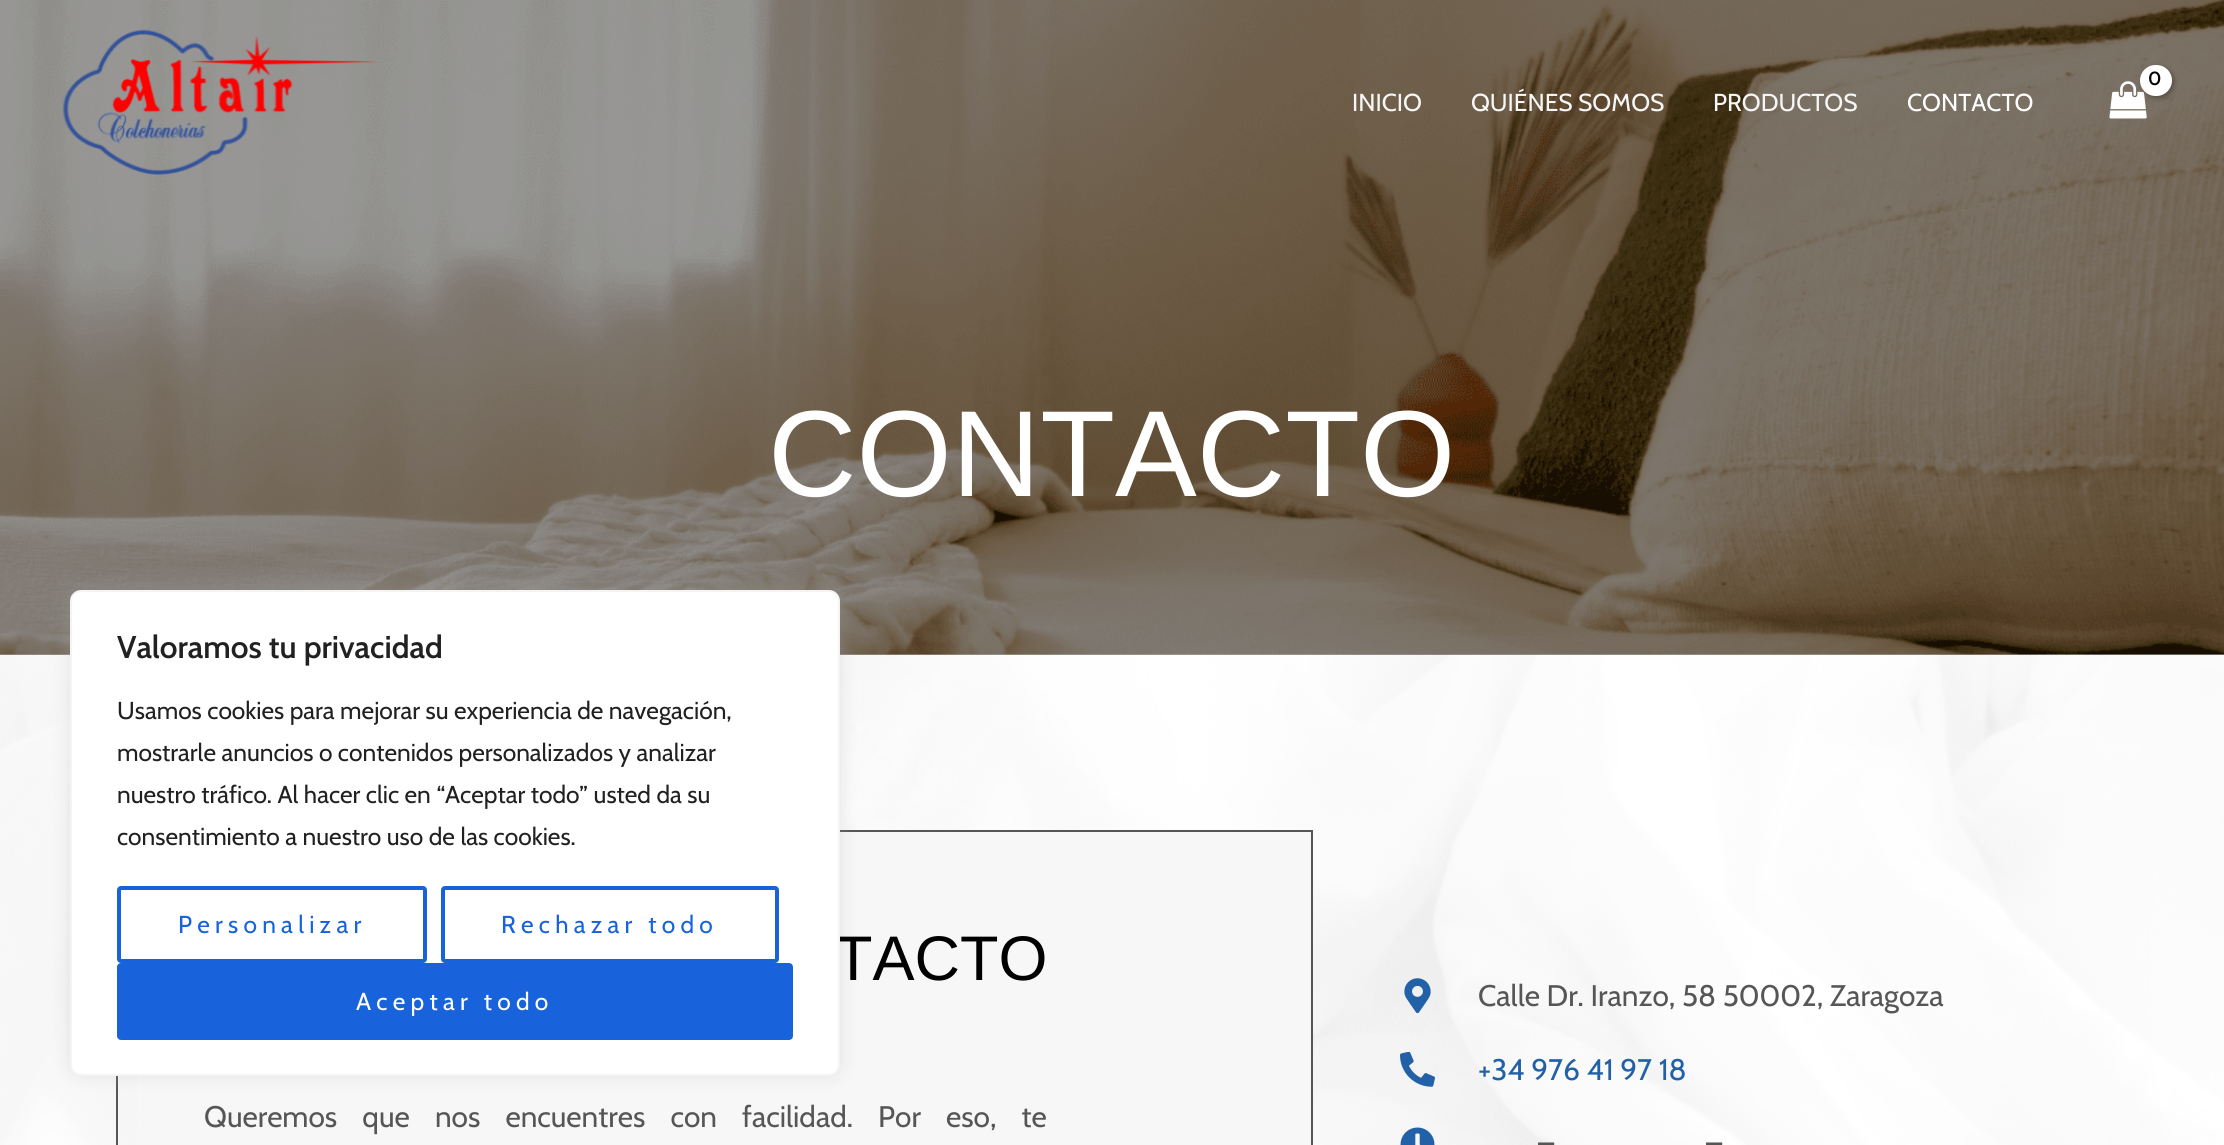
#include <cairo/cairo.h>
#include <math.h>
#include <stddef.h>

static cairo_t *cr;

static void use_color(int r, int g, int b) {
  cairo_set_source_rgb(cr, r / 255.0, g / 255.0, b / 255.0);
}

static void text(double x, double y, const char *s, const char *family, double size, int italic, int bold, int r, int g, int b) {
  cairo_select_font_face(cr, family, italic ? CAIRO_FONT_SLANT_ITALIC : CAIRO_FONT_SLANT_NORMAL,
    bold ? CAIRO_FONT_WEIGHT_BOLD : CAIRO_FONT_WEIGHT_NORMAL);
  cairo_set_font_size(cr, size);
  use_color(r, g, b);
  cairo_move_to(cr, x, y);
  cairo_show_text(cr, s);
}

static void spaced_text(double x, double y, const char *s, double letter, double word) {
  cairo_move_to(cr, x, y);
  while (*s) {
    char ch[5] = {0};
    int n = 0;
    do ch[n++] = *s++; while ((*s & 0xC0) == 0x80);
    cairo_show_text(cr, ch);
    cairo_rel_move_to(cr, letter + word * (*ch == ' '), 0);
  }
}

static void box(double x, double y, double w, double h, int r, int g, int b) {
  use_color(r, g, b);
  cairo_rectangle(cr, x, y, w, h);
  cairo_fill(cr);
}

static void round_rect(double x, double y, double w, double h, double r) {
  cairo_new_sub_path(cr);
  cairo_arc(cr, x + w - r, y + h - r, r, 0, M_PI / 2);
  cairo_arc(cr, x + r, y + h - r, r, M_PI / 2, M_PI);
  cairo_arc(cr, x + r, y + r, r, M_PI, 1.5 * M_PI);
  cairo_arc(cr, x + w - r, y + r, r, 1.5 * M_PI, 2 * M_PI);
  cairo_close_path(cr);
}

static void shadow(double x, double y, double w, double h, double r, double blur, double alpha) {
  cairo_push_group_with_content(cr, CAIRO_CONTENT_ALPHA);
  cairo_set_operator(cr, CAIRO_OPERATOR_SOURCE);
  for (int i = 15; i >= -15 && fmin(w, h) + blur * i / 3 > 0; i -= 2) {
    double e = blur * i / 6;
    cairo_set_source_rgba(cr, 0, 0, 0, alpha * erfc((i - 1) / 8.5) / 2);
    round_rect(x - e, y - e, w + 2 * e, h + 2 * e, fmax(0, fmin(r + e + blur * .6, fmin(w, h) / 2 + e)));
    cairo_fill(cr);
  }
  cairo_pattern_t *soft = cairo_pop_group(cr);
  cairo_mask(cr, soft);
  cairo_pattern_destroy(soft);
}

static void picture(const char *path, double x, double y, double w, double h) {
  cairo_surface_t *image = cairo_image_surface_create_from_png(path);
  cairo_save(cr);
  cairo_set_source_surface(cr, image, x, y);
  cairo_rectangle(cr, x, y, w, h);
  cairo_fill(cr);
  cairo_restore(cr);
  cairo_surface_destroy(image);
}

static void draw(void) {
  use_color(255, 255, 255);
  cairo_paint(cr);
  box(0, 654, 2224, 1, 153, 153, 153);
  picture("img_03.png", 0, 0, 2224, 655);
  picture("img_01.png", 62, 29, 316, 146);
  picture("img_02.png", 2109, 81, 38, 38);
  use_color(0, 0, 0);
  shadow(2142, 67, 32, 31, 15.5, 2.5, 0.3);
  use_color(255, 255, 255);
  round_rect(2140, 65, 32, 31, 15.5);
  cairo_fill(cr);
  picture("img_04.png", 0, 654, 2224, 491);
  box(141, 832, 1170, 313, 247, 247, 247);
  cairo_rectangle(cr, 117, 831, 1195, 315);
  use_color(86, 86, 86);
  cairo_stroke(cr);
  picture("img_05.png", 1404, 978, 27, 35);
  picture("img_06.png", 1400, 1052, 35, 35);
  picture("img_07.png", 1400, 1127, 35, 18);
  use_color(172, 171, 171);
  shadow(70, 588, 770, 487, 11, 9, 0.3);
  cairo_select_font_face(cr, "Cabin SemiBold", CAIRO_FONT_SLANT_NORMAL, CAIRO_FONT_WEIGHT_NORMAL);
  cairo_set_font_size(cr, 19);
  use_color(0, 0, 0);
  spaced_text(2148, 85, "0", -1, 0);
  text(1352, 111, "INICIO", "Cabin", 24.5, 0, 0, 247, 247, 247);
  text(1471, 111, "QUIÉNES SOMOS", "Cabin", 24.5, 0, 0, 247, 247, 247);
  text(1713, 111, "PRODUCTOS", "Cabin", 24.5, 0, 0, 247, 247, 247);
  text(1907, 111, "CONTACTO", "Cabin", 24.5, 0, 0, 255, 255, 255);
  text(768, 496, "CONTACTO", "Liberation Sans", 122.5, 0, 0, 255, 255, 255);
  cairo_set_font_size(cr, 63);
  use_color(0, 0, 0);
  spaced_text(834, 980, "TACTO", 0, 28);
  cairo_select_font_face(cr, "Cabin", CAIRO_FONT_SLANT_NORMAL, CAIRO_FONT_WEIGHT_NORMAL);
  cairo_set_font_size(cr, 29.75);
  use_color(86, 86, 86);
  spaced_text(204, 1127, "Queremos que nos encuentres con facilidad. Por eso, te", 0, 18.5);
  text(1478, 1006, "Calle Dr. Iranzo, 58 50002, Zaragoza", "Cabin", 29.75, 0, 0, 86, 86, 86);
  text(1478, 1080, "+34 976 41 97 18", "Cabin", 29.75, 0, 0, 34, 97, 168);
  text(1538, 1153, "–", "Cabin", 29.75, 0, 0, 86, 86, 86);
  text(1706, 1153, "–", "Cabin", 29.75, 0, 0, 86, 86, 86);
  use_color(255, 255, 255);
  round_rect(71, 591, 768, 484, 10);
  cairo_fill_preserve(cr);
  use_color(244, 244, 244);
  cairo_stroke(cr);
  text(117, 658, "Valoramos tu privacidad", "Cabin SemiBold", 31.5, 0, 0, 33, 33, 33);
  text(117, 719, "Usamos cookies para mejorar su experiencia de navegación,", "Cabin", 24.5, 0, 0, 33, 33, 33);
  text(117, 761, "mostrarle anuncios o contenidos personalizados y analizar", "Cabin", 24.5, 0, 0, 33, 33, 33);
  text(117, 803, "nuestro tráfico. Al hacer clic en “Aceptar todo” usted da su", "Cabin", 24.5, 0, 0, 33, 33, 33);
  text(117, 845, "consentimiento a nuestro uso de las cookies.", "Cabin", 24.5, 0, 0, 33, 33, 33);
  round_rect(119, 888, 306, 73, 2);
  use_color(24, 99, 220);
  cairo_set_line_width(cr, 4);
  cairo_stroke(cr);
  spaced_text(178, 933, "Personalizar", 5.25, 0);
  round_rect(443, 888, 334, 73, 2);
  cairo_stroke(cr);
  spaced_text(501, 933, "Rechazar todo", 5.25, 0);
  round_rect(119, 965, 672, 73, 2);
  cairo_fill_preserve(cr);
  cairo_stroke(cr);
  use_color(255, 255, 255);
  spaced_text(356, 1010, "Aceptar todo", 5.25, 0);
}

int main(void) {
  cairo_surface_t *surface = cairo_image_surface_create(CAIRO_FORMAT_RGB24, 2224, 1145);
  cr = cairo_create(surface);
  cairo_font_options_t *options = cairo_font_options_create();
  cairo_font_options_set_hint_metrics(options, CAIRO_HINT_METRICS_OFF);
  cairo_font_options_set_hint_style(options, CAIRO_HINT_STYLE_NONE);
  cairo_set_font_options(cr, options);
  cairo_set_miter_limit(cr, 4);
  draw();
  cairo_surface_write_to_png(surface, "out.png");
  cairo_font_options_destroy(options);
  cairo_destroy(cr);
  cairo_surface_destroy(surface);
  return 0;
}
